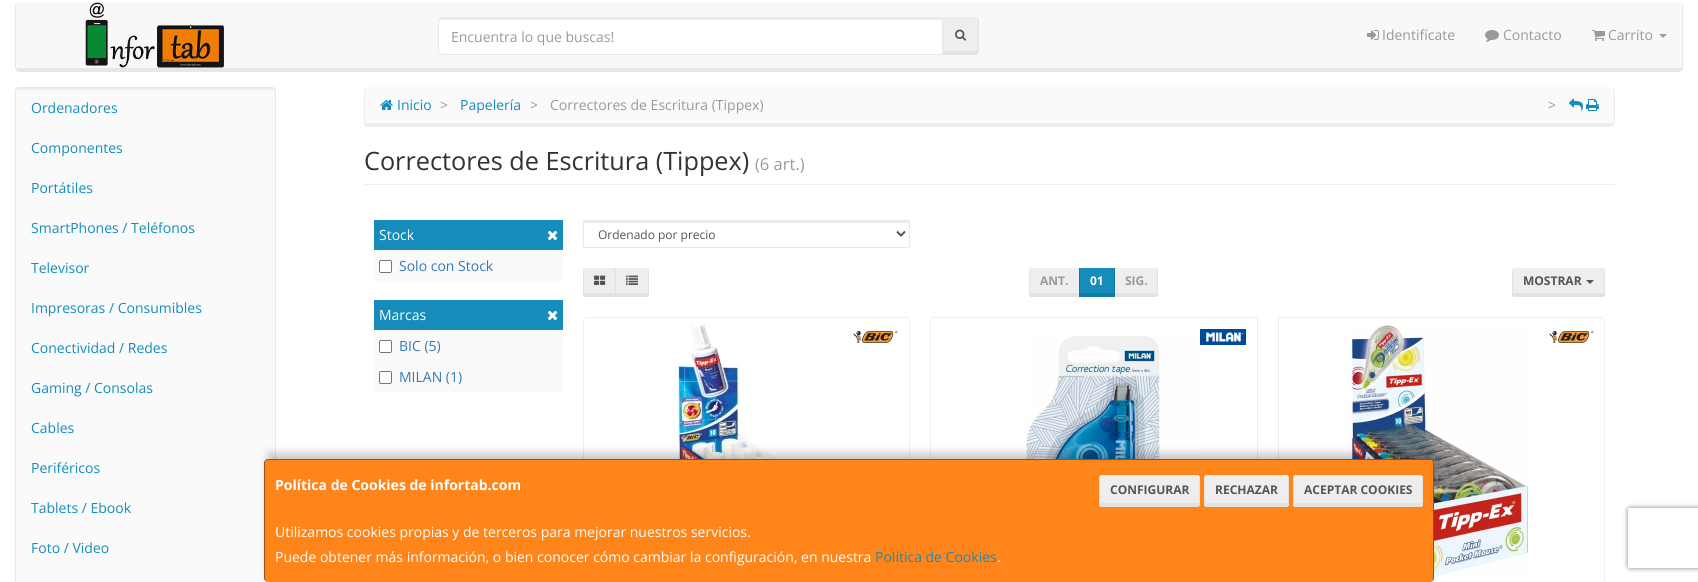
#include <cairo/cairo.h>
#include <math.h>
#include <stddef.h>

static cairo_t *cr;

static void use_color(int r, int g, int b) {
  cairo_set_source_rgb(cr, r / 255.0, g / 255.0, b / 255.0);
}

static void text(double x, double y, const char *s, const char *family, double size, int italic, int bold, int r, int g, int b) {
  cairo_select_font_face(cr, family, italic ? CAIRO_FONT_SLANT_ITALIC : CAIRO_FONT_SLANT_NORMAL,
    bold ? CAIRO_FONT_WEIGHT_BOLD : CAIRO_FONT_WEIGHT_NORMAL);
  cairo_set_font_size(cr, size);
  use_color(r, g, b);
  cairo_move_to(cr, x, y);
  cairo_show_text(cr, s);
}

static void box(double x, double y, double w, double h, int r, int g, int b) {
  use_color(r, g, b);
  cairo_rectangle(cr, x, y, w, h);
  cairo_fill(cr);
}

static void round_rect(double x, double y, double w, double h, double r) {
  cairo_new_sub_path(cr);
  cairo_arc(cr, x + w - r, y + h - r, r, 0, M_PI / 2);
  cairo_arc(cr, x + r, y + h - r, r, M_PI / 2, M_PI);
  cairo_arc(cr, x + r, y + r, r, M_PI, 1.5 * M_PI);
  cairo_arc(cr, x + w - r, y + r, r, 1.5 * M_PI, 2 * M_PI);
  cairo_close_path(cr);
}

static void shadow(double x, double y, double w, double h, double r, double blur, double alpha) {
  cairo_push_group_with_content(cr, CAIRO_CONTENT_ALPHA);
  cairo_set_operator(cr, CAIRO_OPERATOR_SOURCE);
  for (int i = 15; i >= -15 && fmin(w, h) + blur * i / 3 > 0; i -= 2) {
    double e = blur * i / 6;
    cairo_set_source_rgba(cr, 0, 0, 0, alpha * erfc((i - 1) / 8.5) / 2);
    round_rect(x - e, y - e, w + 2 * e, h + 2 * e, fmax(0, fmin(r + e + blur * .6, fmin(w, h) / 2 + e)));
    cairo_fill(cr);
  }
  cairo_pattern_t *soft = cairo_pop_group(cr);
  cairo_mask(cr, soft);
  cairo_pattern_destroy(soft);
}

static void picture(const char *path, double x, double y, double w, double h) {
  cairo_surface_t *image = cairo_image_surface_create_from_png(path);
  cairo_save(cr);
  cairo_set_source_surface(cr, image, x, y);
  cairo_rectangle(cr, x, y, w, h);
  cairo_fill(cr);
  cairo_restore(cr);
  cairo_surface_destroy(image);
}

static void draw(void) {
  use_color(255, 255, 255);
  cairo_paint(cr);
  use_color(248, 248, 248);
  cairo_new_path(cr);
  cairo_move_to(cr, 19, 2);
  cairo_line_to(cr, 1679, 2);
  cairo_curve_to(cr, 1681, 2, 1682, 4, 1682, 6);
  cairo_line_to(cr, 1682, 68);
  cairo_line_to(cr, 16, 68);
  cairo_line_to(cr, 16, 6);
  cairo_curve_to(cr, 16, 4, 17, 2, 19, 2);
  cairo_close_path(cr);
  cairo_fill(cr);
  use_color(231, 231, 231);
  cairo_set_fill_rule(cr, CAIRO_FILL_RULE_EVEN_ODD);
  cairo_new_path(cr);
  cairo_move_to(cr, 19, 2);
  cairo_line_to(cr, 1679, 2);
  cairo_curve_to(cr, 1681, 2, 1683, 4, 1683, 6);
  cairo_line_to(cr, 1683, 68);
  cairo_curve_to(cr, 1683, 70, 1681, 72, 1679, 72);
  cairo_line_to(cr, 19, 72);
  cairo_curve_to(cr, 17, 72, 15, 70, 15, 68);
  cairo_line_to(cr, 15, 6);
  cairo_curve_to(cr, 15, 4, 17, 2, 19, 2);
  cairo_close_path(cr);
  cairo_move_to(cr, 19, 2);
  cairo_line_to(cr, 1679, 2);
  cairo_curve_to(cr, 1681, 2, 1682, 4, 1682, 6);
  cairo_line_to(cr, 1682, 68);
  cairo_line_to(cr, 16, 68);
  cairo_line_to(cr, 16, 6);
  cairo_curve_to(cr, 16, 4, 17, 2, 19, 2);
  cairo_close_path(cr);
  cairo_fill(cr);
  picture("img_01.png", 85, 2, 139, 66);
  use_color(238, 238, 238);
  cairo_set_fill_rule(cr, CAIRO_FILL_RULE_WINDING);
  cairo_new_path(cr);
  cairo_move_to(cr, 943, 17);
  cairo_line_to(cr, 975, 17);
  cairo_curve_to(cr, 976.5, 17, 978, 19, 978, 21);
  cairo_line_to(cr, 978, 51);
  cairo_line_to(cr, 943, 51);
  cairo_close_path(cr);
  cairo_fill(cr);
  use_color(226, 226, 226);
  cairo_set_fill_rule(cr, CAIRO_FILL_RULE_EVEN_ODD);
  cairo_new_path(cr);
  cairo_move_to(cr, 942, 17);
  cairo_line_to(cr, 975, 17);
  cairo_curve_to(cr, 977, 17, 979, 19, 979, 21);
  cairo_line_to(cr, 979, 51);
  cairo_curve_to(cr, 979, 53, 977, 55, 975, 55);
  cairo_line_to(cr, 942, 55);
  cairo_close_path(cr);
  cairo_move_to(cr, 943, 17);
  cairo_line_to(cr, 975, 17);
  cairo_curve_to(cr, 976.5, 17, 978, 19, 978, 21);
  cairo_line_to(cr, 978, 51);
  cairo_line_to(cr, 943, 51);
  cairo_close_path(cr);
  cairo_fill(cr);
  use_color(255, 255, 255);
  cairo_new_path(cr);
  cairo_move_to(cr, 442, 17);
  cairo_line_to(cr, 943, 17);
  cairo_line_to(cr, 943, 55);
  cairo_line_to(cr, 442, 55);
  cairo_curve_to(cr, 440, 55, 438, 53, 438, 51);
  cairo_line_to(cr, 438, 21);
  cairo_curve_to(cr, 438, 19, 440, 17, 442, 17);
  cairo_close_path(cr);
  cairo_fill(cr);
  use_color(236, 236, 236);
  cairo_set_fill_rule(cr, CAIRO_FILL_RULE_WINDING);
  cairo_new_path(cr);
  cairo_move_to(cr, 442, 20);
  cairo_line_to(cr, 942, 20);
  cairo_line_to(cr, 942, 18);
  cairo_line_to(cr, 442, 18);
  cairo_curve_to(cr, 439, 18, 439, 21, 439, 23);
  cairo_curve_to(cr, 439, 21, 440, 20, 442, 20);
  cairo_close_path(cr);
  cairo_fill(cr);
  cairo_new_path(cr);
  cairo_move_to(cr, 442, 17.5);
  cairo_line_to(cr, 942.5, 17.5);
  cairo_line_to(cr, 942.5, 54.5);
  cairo_line_to(cr, 442, 54.5);
  cairo_curve_to(cr, 440, 54.5, 438.5, 53, 438.5, 51);
  cairo_line_to(cr, 438.5, 21);
  cairo_curve_to(cr, 438.5, 19, 440, 17.5, 442, 17.5);
  cairo_close_path(cr);
  use_color(231, 231, 231);
  cairo_set_line_width(cr, 1);
  cairo_stroke(cr);
  picture("img_02.png", 955, 29, 12, 12);
  picture("img_03.png", 1367, 30, 12, 10);
  picture("img_04.png", 1485, 30, 14, 12);
  picture("img_05.png", 1592, 30, 13, 11);
  use_color(153, 153, 153);
  cairo_new_path(cr);
  cairo_move_to(cr, 1659, 34);
  cairo_line_to(cr, 1667, 34);
  cairo_line_to(cr, 1663, 38);
  cairo_close_path(cr);
  cairo_fill(cr);
  use_color(250, 250, 250);
  round_rect(15, 87, 261, 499, 4);
  cairo_fill(cr);
  use_color(238, 238, 238);
  cairo_new_path(cr);
  cairo_move_to(cr, 19, 90);
  cairo_line_to(cr, 273, 90);
  cairo_line_to(cr, 275, 91);
  cairo_line_to(cr, 275, 93);
  cairo_curve_to(cr, 275, 91, 275, 88, 272, 88);
  cairo_line_to(cr, 18, 88);
  cairo_curve_to(cr, 16, 89, 16, 91, 16, 93);
  cairo_curve_to(cr, 16, 91, 17, 90, 19, 90);
  cairo_close_path(cr);
  cairo_fill(cr);
  round_rect(15.5, 87.5, 260, 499, 3.5);
  use_color(231, 231, 231);
  cairo_stroke(cr);
  use_color(250, 250, 250);
  cairo_new_path(cr);
  cairo_move_to(cr, 368, 87);
  cairo_line_to(cr, 1611, 87);
  cairo_curve_to(cr, 1613, 87, 1614, 89, 1614, 91);
  cairo_line_to(cr, 1614, 123);
  cairo_line_to(cr, 365, 123);
  cairo_line_to(cr, 365, 91);
  cairo_curve_to(cr, 365, 89, 366, 87, 368, 87);
  cairo_close_path(cr);
  cairo_fill(cr);
  use_color(237, 237, 237);
  cairo_set_fill_rule(cr, CAIRO_FILL_RULE_EVEN_ODD);
  cairo_new_path(cr);
  cairo_move_to(cr, 368, 87);
  cairo_line_to(cr, 1611, 87);
  cairo_curve_to(cr, 1613, 87, 1615, 89, 1615, 91);
  cairo_line_to(cr, 1615, 123);
  cairo_curve_to(cr, 1615, 125, 1613, 127, 1611, 127);
  cairo_line_to(cr, 368, 127);
  cairo_curve_to(cr, 366, 127, 364, 125, 364, 123);
  cairo_line_to(cr, 364, 91);
  cairo_curve_to(cr, 364, 89, 366, 87, 368, 87);
  cairo_close_path(cr);
  cairo_move_to(cr, 368, 87);
  cairo_line_to(cr, 1611, 87);
  cairo_curve_to(cr, 1613, 87, 1614, 89, 1614, 91);
  cairo_line_to(cr, 1614, 123);
  cairo_line_to(cr, 365, 123);
  cairo_line_to(cr, 365, 91);
  cairo_curve_to(cr, 365, 89, 366, 87, 368, 87);
  cairo_close_path(cr);
  cairo_fill(cr);
  picture("img_06.png", 380, 100, 13, 10);
  picture("img_07.png", 1569, 98, 14, 13);
  picture("img_08.png", 1586, 99, 13, 12);
  box(364, 184, 1251, 1, 238, 238, 238);
  box(374, 220, 189, 30, 21, 140, 186);
  picture("img_09.png", 547, 230, 11, 11);
  box(374, 250, 189, 31, 249, 249, 249);
  use_color(255, 255, 255);
  round_rect(379.5, 260.5, 12, 12, 1.5);
  cairo_fill_preserve(cr);
  use_color(118, 118, 118);
  cairo_stroke(cr);
  box(374, 300, 189, 30, 21, 140, 186);
  picture("img_09.png", 547, 310, 11, 11);
  box(374, 330, 189, 62, 249, 249, 249);
  use_color(255, 255, 255);
  round_rect(379.5, 340.5, 12, 12, 1.5);
  cairo_fill_preserve(cr);
  use_color(118, 118, 118);
  cairo_stroke(cr);
  use_color(255, 255, 255);
  round_rect(379.5, 371.5, 12, 12, 1.5);
  cairo_fill_preserve(cr);
  use_color(118, 118, 118);
  cairo_stroke(cr);
  use_color(236, 236, 236);
  cairo_set_fill_rule(cr, CAIRO_FILL_RULE_WINDING);
  cairo_new_path(cr);
  cairo_move_to(cr, 585, 223);
  cairo_line_to(cr, 908, 223);
  cairo_line_to(cr, 909, 225);
  cairo_curve_to(cr, 909, 224, 910, 221, 908, 221);
  cairo_line_to(cr, 584, 221);
  cairo_line_to(cr, 584, 224);
  cairo_close_path(cr);
  cairo_fill(cr);
  round_rect(583.5, 220.5, 326, 27, 1.5);
  use_color(231, 231, 231);
  cairo_stroke(cr);
  cairo_new_path(cr);
  cairo_move_to(cr, 897, 231.5);
  cairo_line_to(cr, 901, 235.5);
  cairo_line_to(cr, 905, 231.5);
  use_color(85, 85, 85);
  cairo_set_line_width(cr, 2);
  cairo_stroke(cr);
  use_color(238, 238, 238);
  cairo_new_path(cr);
  cairo_move_to(cr, 585, 268);
  cairo_line_to(cr, 615, 268);
  cairo_line_to(cr, 615, 293);
  cairo_line_to(cr, 584, 293);
  cairo_line_to(cr, 584, 269);
  cairo_close_path(cr);
  cairo_fill(cr);
  box(615, 268, 1, 29, 226, 226, 226);
  box(584, 293, 64, 4, 226, 226, 226);
  box(583, 269, 1, 27, 226, 226, 226);
  picture("img_10.png", 594, 275, 12, 10);
  use_color(238, 238, 238);
  cairo_new_path(cr);
  cairo_move_to(cr, 616, 268);
  cairo_line_to(cr, 647, 268);
  cairo_curve_to(cr, 647.5, 268, 648, 269, 648, 270);
  cairo_line_to(cr, 648, 293);
  cairo_line_to(cr, 616, 293);
  cairo_close_path(cr);
  cairo_fill(cr);
  box(648, 269, 1, 27, 226, 226, 226);
  picture("img_11.png", 626, 275, 12, 10);
  use_color(238, 238, 238);
  cairo_new_path(cr);
  cairo_move_to(cr, 1031, 268);
  cairo_line_to(cr, 1079, 268);
  cairo_line_to(cr, 1079, 293);
  cairo_line_to(cr, 1030, 293);
  cairo_line_to(cr, 1030, 269);
  cairo_close_path(cr);
  cairo_fill(cr);
  box(1030, 293, 50, 4, 226, 226, 226);
  box(1029, 269, 1, 27, 226, 226, 226);
  box(1080, 268, 34, 25, 21, 140, 186);
  box(1114, 293, 43, 4, 226, 226, 226);
  box(1114, 268, 1, 29, 18, 123, 163);
  box(1079, 293, 36, 4, 18, 123, 163);
  box(1079, 268, 1, 29, 18, 123, 163);
  use_color(238, 238, 238);
  cairo_new_path(cr);
  cairo_move_to(cr, 1115, 268);
  cairo_line_to(cr, 1156, 268);
  cairo_curve_to(cr, 1157, 268, 1157, 269, 1157, 270);
  cairo_line_to(cr, 1157, 293);
  cairo_line_to(cr, 1115, 293);
  cairo_close_path(cr);
  cairo_fill(cr);
  box(1157, 269, 1, 27, 226, 226, 226);
  use_color(238, 238, 238);
  cairo_new_path(cr);
  cairo_move_to(cr, 1514, 268);
  cairo_line_to(cr, 1603, 268);
  cairo_curve_to(cr, 1604, 268, 1604, 269, 1604, 270);
  cairo_line_to(cr, 1604, 293);
  cairo_line_to(cr, 1513, 293);
  cairo_line_to(cr, 1513, 269);
  cairo_close_path(cr);
  cairo_fill(cr);
  box(1604, 269, 1, 27, 226, 226, 226);
  box(1513, 293, 91, 4, 226, 226, 226);
  box(1512, 269, 1, 27, 226, 226, 226);
  use_color(85, 85, 85);
  cairo_new_path(cr);
  cairo_move_to(cr, 1586, 280);
  cairo_line_to(cr, 1594, 280);
  cairo_line_to(cr, 1590, 284);
  cairo_close_path(cr);
  cairo_fill(cr);
  round_rect(583.5, 317.5, 326, 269, 3.5);
  use_color(238, 238, 238);
  cairo_set_line_width(cr, 1);
  cairo_stroke(cr);
  picture("img_12.png", 677, 324, 136, 135);
  picture("img_13.png", 853, 331, 45, 12);
  round_rect(930.5, 317.5, 327, 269, 3.5);
  cairo_stroke(cr);
  picture("img_14.png", 1026, 336, 175, 123);
  picture("img_15.png", 1200, 329, 46, 16);
  round_rect(1278.5, 317.5, 326, 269, 3.5);
  cairo_stroke(cr);
  picture("img_16.png", 1348, 325, 182, 255);
  picture("img_13.png", 1549, 331, 45, 12);
  use_color(0, 0, 0);
  shadow(269, 454, 1160, 113, 0, 5, 0.25);
  use_color(255, 133, 27);
  round_rect(264, 459, 1170, 123, 4);
  cairo_fill(cr);
  cairo_set_source_rgba(cr, 0, 0, 0, 0.4);
  cairo_set_fill_rule(cr, CAIRO_FILL_RULE_EVEN_ODD);
  cairo_new_path(cr);
  cairo_move_to(cr, 268, 459);
  cairo_line_to(cr, 1430, 459);
  cairo_curve_to(cr, 1432, 459, 1434, 461, 1434, 463);
  cairo_line_to(cr, 1434, 578);
  cairo_curve_to(cr, 1434, 580, 1432, 582, 1430, 582);
  cairo_line_to(cr, 268, 582);
  cairo_curve_to(cr, 266, 582, 264, 580, 264, 578);
  cairo_line_to(cr, 264, 463);
  cairo_curve_to(cr, 264, 461, 266, 459, 268, 459);
  cairo_close_path(cr);
  cairo_move_to(cr, 268, 460);
  cairo_line_to(cr, 1430, 460);
  cairo_curve_to(cr, 1432, 460, 1433, 461, 1433, 463);
  cairo_line_to(cr, 1433, 578);
  cairo_curve_to(cr, 1433, 580, 1432, 582, 1430, 582);
  cairo_line_to(cr, 268, 582);
  cairo_curve_to(cr, 266, 582, 265, 580, 265, 578);
  cairo_line_to(cr, 265, 463);
  cairo_curve_to(cr, 265, 461, 266, 460, 268, 460);
  cairo_close_path(cr);
  cairo_fill(cr);
  use_color(238, 238, 238);
  cairo_set_fill_rule(cr, CAIRO_FILL_RULE_WINDING);
  cairo_new_path(cr);
  cairo_move_to(cr, 1101, 475);
  cairo_line_to(cr, 1198, 475);
  cairo_curve_to(cr, 1199, 475, 1199, 476, 1199, 477);
  cairo_line_to(cr, 1199, 503);
  cairo_line_to(cr, 1100, 503);
  cairo_line_to(cr, 1100, 477);
  cairo_curve_to(cr, 1100, 476, 1100, 475, 1101, 475);
  cairo_close_path(cr);
  cairo_fill(cr);
  box(1199, 476, 1, 30, 226, 226, 226);
  box(1100, 503, 99, 4, 226, 226, 226);
  box(1099, 476, 1, 30, 226, 226, 226);
  use_color(238, 238, 238);
  cairo_new_path(cr);
  cairo_move_to(cr, 1206, 475);
  cairo_line_to(cr, 1287, 475);
  cairo_curve_to(cr, 1288, 475, 1288, 476, 1288, 477);
  cairo_line_to(cr, 1288, 503);
  cairo_line_to(cr, 1205, 503);
  cairo_line_to(cr, 1205, 477);
  cairo_curve_to(cr, 1205, 476, 1205, 475, 1206, 475);
  cairo_close_path(cr);
  cairo_fill(cr);
  box(1288, 476, 1, 30, 226, 226, 226);
  box(1205, 503, 83, 4, 226, 226, 226);
  box(1204, 476, 1, 30, 226, 226, 226);
  use_color(238, 238, 238);
  cairo_new_path(cr);
  cairo_move_to(cr, 1295, 475);
  cairo_line_to(cr, 1421, 475);
  cairo_curve_to(cr, 1422, 475, 1422, 476, 1422, 477);
  cairo_line_to(cr, 1422, 503);
  cairo_line_to(cr, 1294, 503);
  cairo_line_to(cr, 1294, 477);
  cairo_curve_to(cr, 1294, 476, 1294, 475, 1295, 475);
  cairo_close_path(cr);
  cairo_fill(cr);
  box(1422, 476, 1, 30, 226, 226, 226);
  box(1294, 503, 128, 4, 226, 226, 226);
  box(1293, 476, 1, 30, 226, 226, 226);
  cairo_save(cr);
  cairo_set_fill_rule(cr, CAIRO_FILL_RULE_EVEN_ODD);
  cairo_new_path(cr);
  cairo_move_to(cr, 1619, 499);
  cairo_line_to(cr, 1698, 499);
  cairo_line_to(cr, 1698, 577);
  cairo_line_to(cr, 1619, 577);
  cairo_close_path(cr);
  cairo_move_to(cr, 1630, 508);
  cairo_line_to(cr, 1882, 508);
  cairo_curve_to(cr, 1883, 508, 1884, 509, 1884, 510);
  cairo_line_to(cr, 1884, 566);
  cairo_curve_to(cr, 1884, 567, 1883, 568, 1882, 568);
  cairo_line_to(cr, 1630, 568);
  cairo_curve_to(cr, 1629, 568, 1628, 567, 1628, 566);
  cairo_line_to(cr, 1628, 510);
  cairo_curve_to(cr, 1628, 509, 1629, 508, 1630, 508);
  cairo_close_path(cr);
  cairo_clip(cr);
  use_color(128, 128, 128);
  shadow(1628, 508, 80, 60, 2, 2.5, 1);
  cairo_restore(cr);
  text(451, 42, "Encuentra lo que buscas!", "Open Sans", 14, 0, 0, 153, 153, 153);
  text(1382, 40, "Identifícate", "Open Sans", 14, 0, 0, 153, 153, 153);
  text(1503, 40, "Contacto", "Open Sans", 14, 0, 0, 153, 153, 153);
  text(1608, 40, "Carrito", "Open Sans", 14, 0, 0, 153, 153, 153);
  text(31, 113, "Ordenadores", "Open Sans", 14, 0, 0, 21, 140, 186);
  text(31, 153, "Componentes", "Open Sans", 14, 0, 0, 21, 140, 186);
  text(31, 193, "Portátiles", "Open Sans", 14, 0, 0, 21, 140, 186);
  text(31, 233, "SmartPhones / Teléfonos", "Open Sans", 14, 0, 0, 21, 140, 186);
  text(31, 273, "Televisor", "Open Sans", 14, 0, 0, 21, 140, 186);
  text(31, 313, "Impresoras / Consumibles", "Open Sans", 14, 0, 0, 21, 140, 186);
  text(31, 353, "Conectividad / Redes", "Open Sans", 14, 0, 0, 21, 140, 186);
  text(31, 393, "Gaming / Consolas", "Open Sans", 14, 0, 0, 21, 140, 186);
  text(31, 433, "Cables", "Open Sans", 14, 0, 0, 21, 140, 186);
  text(31, 473, "Periféricos", "Open Sans", 14, 0, 0, 21, 140, 186);
  text(31, 513, "Tablets / Ebook", "Open Sans", 14, 0, 0, 21, 140, 186);
  text(31, 553, "Foto / Video", "Open Sans", 14, 0, 0, 21, 140, 186);
  text(397, 110, "Inicio", "Open Sans", 14, 0, 0, 21, 140, 186);
  text(440, 110, ">", "Open Sans", 14, 0, 0, 153, 153, 153);
  text(460, 110, "Papelería", "Open Sans", 14, 0, 0, 21, 140, 186);
  text(530, 110, ">", "Open Sans", 14, 0, 0, 153, 153, 153);
  text(550, 110, "Correctores de Escritura (Tippex)", "Open Sans", 14, 0, 0, 153, 153, 153);
  text(1548, 110, ">", "Open Sans", 14, 0, 0, 153, 153, 153);
  text(364, 170, "Correctores de Escritura (Tippex)", "Open Sans", 25.25, 0, 0, 51, 51, 51);
  text(755, 170, "(6 art.)", "Open Sans", 16.5, 0, 0, 153, 153, 153);
  text(379, 240, "Stock", "Open Sans", 14, 0, 0, 255, 255, 255);
  text(399, 271, "Solo con Stock", "Open Sans", 14, 0, 0, 51, 122, 183);
  text(379, 320, "Marcas", "Open Sans", 14, 0, 0, 255, 255, 255);
  text(399, 351, "BIC (5)", "Open Sans", 14, 0, 0, 51, 122, 183);
  text(399, 382, "MILAN (1)", "Open Sans", 14, 0, 0, 51, 122, 183);
  text(598, 239, "Ordenado por precio", "Open Sans", 12, 0, 0, 85, 85, 85);
  text(1040, 285, "ANT.", "Open Sans", 12, 0, 1, 153, 153, 153);
  text(1090, 285, "01", "Open Sans", 12, 0, 1, 255, 255, 255);
  text(1125, 285, "SIG.", "Open Sans", 12, 0, 1, 153, 153, 153);
  text(1523, 285, "MOSTRAR", "Open Sans", 12, 0, 1, 85, 85, 85);
  text(275, 490, "Política de Cookies de infortab.com", "Open Sans", 14, 0, 1, 255, 255, 255);
  text(1110, 494, "CONFIGURAR", "Open Sans", 12, 0, 1, 85, 85, 85);
  text(1215, 494, "RECHAZAR", "Open Sans", 12, 0, 1, 85, 85, 85);
  text(1304, 494, "ACEPTAR COOKIES", "Open Sans", 12, 0, 1, 85, 85, 85);
  text(275, 537, "Utilizamos cookies propias y de terceros para mejorar nuestros servicios.", "Open Sans", 14, 0, 0, 255, 255, 255);
  text(275, 562, "Puede obtener más información, o bien conocer cómo cambiar la configuración, en nuestra", "Open Sans", 14, 0, 0, 255, 255, 255);
  text(875, 562, "Política de Cookies", "Open Sans", 14, 0, 0, 21, 140, 186);
  text(997, 562, ".", "Open Sans", 14, 0, 0, 255, 255, 255);
}

int main(void) {
  cairo_surface_t *surface = cairo_image_surface_create(CAIRO_FORMAT_RGB24, 1698, 582);
  cr = cairo_create(surface);
  cairo_font_options_t *options = cairo_font_options_create();
  cairo_font_options_set_hint_metrics(options, CAIRO_HINT_METRICS_OFF);
  cairo_font_options_set_hint_style(options, CAIRO_HINT_STYLE_NONE);
  cairo_set_font_options(cr, options);
  cairo_set_miter_limit(cr, 4);
  draw();
  cairo_surface_write_to_png(surface, "out.png");
  cairo_font_options_destroy(options);
  cairo_destroy(cr);
  cairo_surface_destroy(surface);
  return 0;
}
